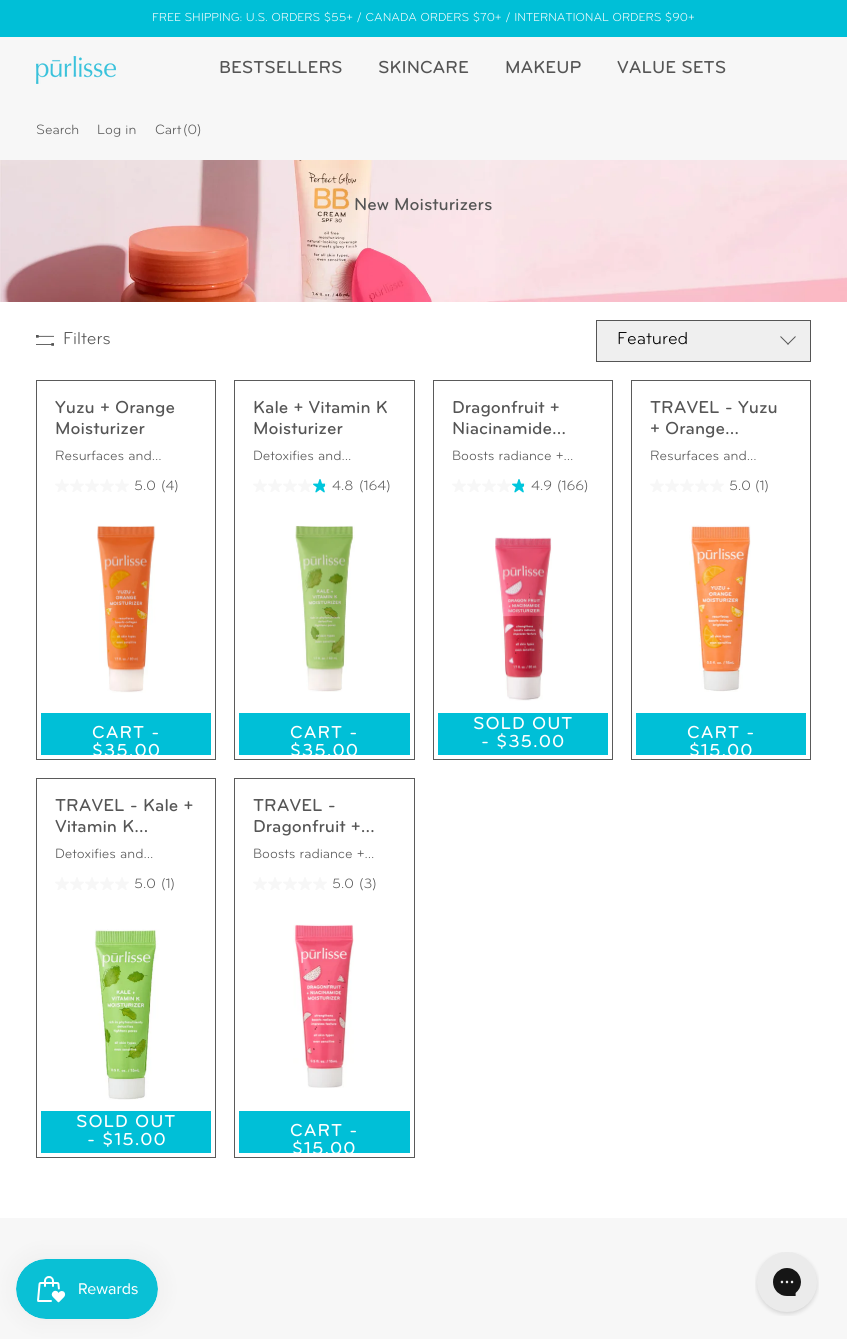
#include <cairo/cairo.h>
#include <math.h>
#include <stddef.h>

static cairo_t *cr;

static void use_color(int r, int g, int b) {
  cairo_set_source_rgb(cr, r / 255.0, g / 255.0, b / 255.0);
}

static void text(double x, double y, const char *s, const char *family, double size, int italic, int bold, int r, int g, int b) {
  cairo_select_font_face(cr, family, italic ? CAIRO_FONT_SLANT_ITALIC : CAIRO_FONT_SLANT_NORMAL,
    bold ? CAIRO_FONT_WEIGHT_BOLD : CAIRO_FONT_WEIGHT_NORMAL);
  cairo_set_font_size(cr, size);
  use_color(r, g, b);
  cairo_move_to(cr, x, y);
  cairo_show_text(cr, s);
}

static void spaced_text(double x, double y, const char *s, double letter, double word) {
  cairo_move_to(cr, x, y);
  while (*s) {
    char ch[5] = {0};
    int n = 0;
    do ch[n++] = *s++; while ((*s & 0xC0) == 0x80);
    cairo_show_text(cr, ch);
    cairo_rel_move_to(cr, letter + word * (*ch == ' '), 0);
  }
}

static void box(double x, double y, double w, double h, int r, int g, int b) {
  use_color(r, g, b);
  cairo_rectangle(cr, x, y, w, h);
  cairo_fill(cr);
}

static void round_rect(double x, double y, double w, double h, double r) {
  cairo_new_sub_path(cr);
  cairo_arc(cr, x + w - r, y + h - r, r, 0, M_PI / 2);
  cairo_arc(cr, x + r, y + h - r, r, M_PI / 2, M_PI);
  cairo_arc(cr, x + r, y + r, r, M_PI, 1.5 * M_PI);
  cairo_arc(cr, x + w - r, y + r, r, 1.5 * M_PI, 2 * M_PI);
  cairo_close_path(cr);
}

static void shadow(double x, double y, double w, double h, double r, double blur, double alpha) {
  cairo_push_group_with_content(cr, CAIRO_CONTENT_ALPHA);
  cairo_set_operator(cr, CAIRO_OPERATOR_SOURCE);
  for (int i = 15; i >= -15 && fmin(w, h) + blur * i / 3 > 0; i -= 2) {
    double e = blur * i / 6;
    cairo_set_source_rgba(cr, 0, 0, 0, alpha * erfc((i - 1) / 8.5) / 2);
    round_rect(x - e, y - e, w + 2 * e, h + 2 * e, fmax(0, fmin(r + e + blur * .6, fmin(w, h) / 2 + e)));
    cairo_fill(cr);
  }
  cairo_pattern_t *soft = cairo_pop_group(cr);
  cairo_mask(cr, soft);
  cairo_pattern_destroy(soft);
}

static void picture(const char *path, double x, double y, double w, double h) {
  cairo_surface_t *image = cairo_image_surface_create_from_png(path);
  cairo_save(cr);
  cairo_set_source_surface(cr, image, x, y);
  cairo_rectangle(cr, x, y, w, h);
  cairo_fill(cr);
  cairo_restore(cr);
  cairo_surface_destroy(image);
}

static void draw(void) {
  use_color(255, 255, 255);
  cairo_paint(cr);
  box(0, 0, 847, 37, 0, 191, 215);
  box(0, 37, 847, 123, 247, 247, 247);
  picture("img_01.png", 36, 56, 80, 28);
  picture("img_02.png", 0, 160, 847, 142);
  picture("img_03.png", 36, 335, 18, 11);
  use_color(239, 239, 239);
  cairo_rectangle(cr, 596.5, 320.5, 214, 41);
  cairo_fill_preserve(cr);
  use_color(85, 85, 85);
  cairo_set_line_width(cr, 1);
  cairo_stroke(cr);
  cairo_new_path(cr);
  cairo_move_to(cr, 780.5, 336.5);
  cairo_line_to(cr, 788.5, 344.5);
  cairo_move_to(cr, 795.5, 336.5);
  cairo_line_to(cr, 787.5, 344.5);
  cairo_stroke(cr);
  cairo_rectangle(cr, 36.5, 380.5, 179, 379);
  use_color(90, 90, 90);
  cairo_stroke(cr);
  picture("img_04.png", 55, 479, 14, 13);
  picture("img_04.png", 70, 479, 14, 13);
  picture("img_04.png", 85, 479, 14, 13);
  picture("img_04.png", 100, 479, 14, 13);
  picture("img_04.png", 115, 479, 14, 13);
  picture("img_05.png", 97, 525, 59, 168);
  box(41, 713, 170, 42, 0, 191, 215);
  cairo_rectangle(cr, 234.5, 380.5, 180, 379);
  use_color(90, 90, 90);
  cairo_stroke(cr);
  picture("img_04.png", 253, 479, 14, 13);
  picture("img_04.png", 268, 479, 14, 13);
  picture("img_04.png", 283, 479, 14, 13);
  picture("img_04.png", 298, 479, 14, 13);
  picture("img_06.png", 313, 479, 14, 14);
  picture("img_07.png", 295, 525, 60, 167);
  box(239, 713, 171, 42, 0, 191, 215);
  cairo_rectangle(cr, 433.5, 380.5, 179, 379);
  use_color(90, 90, 90);
  cairo_stroke(cr);
  picture("img_04.png", 452, 479, 14, 13);
  picture("img_04.png", 467, 479, 14, 13);
  picture("img_04.png", 482, 479, 14, 13);
  picture("img_04.png", 497, 479, 14, 13);
  picture("img_06.png", 512, 479, 14, 14);
  picture("img_08.png", 495, 537, 57, 164);
  box(438, 713, 170, 42, 0, 191, 215);
  cairo_rectangle(cr, 631.5, 380.5, 179, 379);
  use_color(90, 90, 90);
  cairo_stroke(cr);
  picture("img_04.png", 650, 479, 14, 13);
  picture("img_04.png", 665, 479, 14, 13);
  picture("img_04.png", 680, 479, 14, 13);
  picture("img_04.png", 695, 479, 14, 13);
  picture("img_04.png", 710, 479, 14, 13);
  picture("img_09.png", 689, 525, 62, 167);
  box(636, 713, 170, 42, 0, 191, 215);
  cairo_rectangle(cr, 36.5, 778.5, 179, 379);
  use_color(90, 90, 90);
  cairo_stroke(cr);
  picture("img_04.png", 55, 877, 14, 13);
  picture("img_04.png", 70, 877, 14, 13);
  picture("img_04.png", 85, 877, 14, 13);
  picture("img_04.png", 100, 877, 14, 13);
  picture("img_04.png", 115, 877, 14, 13);
  picture("img_10.png", 94, 929, 66, 171);
  box(41, 1111, 170, 42, 0, 191, 215);
  cairo_rectangle(cr, 234.5, 778.5, 180, 379);
  use_color(90, 90, 90);
  cairo_stroke(cr);
  picture("img_04.png", 253, 877, 14, 13);
  picture("img_04.png", 268, 877, 14, 13);
  picture("img_04.png", 283, 877, 14, 13);
  picture("img_04.png", 298, 877, 14, 13);
  picture("img_04.png", 313, 877, 14, 13);
  picture("img_11.png", 293, 924, 61, 164);
  box(239, 1111, 171, 42, 0, 191, 215);
  box(0, 1218, 847, 121, 247, 247, 247);
  use_color(0, 0, 0);
  shadow(16, 1259, 142, 60, 30, 12.5, 0.05);
  picture("img_12.png", 16, 1259, 142, 60);
  picture("img_13.png", 755, 1252, 64, 64);
  text(152, 21, "FREE SHIPPING: U.S. ORDERS $55+ / CANADA ORDERS $70+ / INTERNATIONAL ORDERS $90+", "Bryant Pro", 12, 0, 0, 255, 255, 255);
  text(219, 73, "BESTSELLERS", "Bryant Pro Medium", 18, 0, 0, 85, 85, 85);
  text(378, 73, "SKINCARE", "Bryant Pro Medium", 18, 0, 0, 85, 85, 85);
  text(505, 73, "MAKEUP", "Bryant Pro Medium", 18, 0, 0, 85, 85, 85);
  text(617, 73, "VALUE SETS", "Bryant Pro Medium", 18, 0, 0, 85, 85, 85);
  text(36, 134, "Search", "Bryant Pro", 14, 0, 0, 85, 85, 85);
  text(97, 134, "Log in", "Bryant Pro", 14, 0, 0, 85, 85, 85);
  text(155, 134, "Cart", "Bryant Pro", 14, 0, 0, 85, 85, 85);
  text(183, 134, "(0)", "Bryant Pro", 14, 0, 0, 85, 85, 85);
  text(354, 210, "New Moisturizers", "Bryant Pro Medium", 18, 0, 0, 85, 85, 85);
  text(63, 344, "Filters", "Bryant Pro", 18, 0, 0, 85, 85, 85);
  text(617, 344, "Featured", "Bryant Pro", 18, 0, 0, 0, 0, 0);
  text(55, 413, "Yuzu + Orange", "Bryant Pro Medium", 18, 0, 0, 85, 85, 85);
  text(55, 434, "Moisturizer", "Bryant Pro Medium", 18, 0, 0, 85, 85, 85);
  text(55, 460, "Resurfaces and…", "Bryant Pro", 14, 0, 0, 85, 85, 85);
  text(134, 490, "5.0", "Bryant Pro", 14, 0, 0, 85, 85, 85);
  text(161, 490, "(4)", "Bryant Pro", 14, 0, 0, 85, 85, 85);
  cairo_select_font_face(cr, "Bryant Pro Medium", CAIRO_FONT_SLANT_NORMAL, CAIRO_FONT_WEIGHT_NORMAL);
  cairo_set_font_size(cr, 18);
  use_color(255, 255, 255);
  spaced_text(92, 738, "CART -", 1, 0);
  spaced_text(92, 756, "$35.00", 1, 0);
  text(253, 413, "Kale + Vitamin K", "Bryant Pro Medium", 18, 0, 0, 85, 85, 85);
  text(253, 434, "Moisturizer", "Bryant Pro Medium", 18, 0, 0, 85, 85, 85);
  text(253, 460, "Detoxifies and…", "Bryant Pro", 14, 0, 0, 85, 85, 85);
  text(332, 490, "4.8", "Bryant Pro", 14, 0, 0, 85, 85, 85);
  text(359, 490, "(164)", "Bryant Pro", 14, 0, 0, 85, 85, 85);
  cairo_select_font_face(cr, "Bryant Pro Medium", CAIRO_FONT_SLANT_NORMAL, CAIRO_FONT_WEIGHT_NORMAL);
  cairo_set_font_size(cr, 18);
  use_color(255, 255, 255);
  spaced_text(290, 738, "CART -", 1, 0);
  spaced_text(290, 756, "$35.00", 1, 0);
  text(452, 413, "Dragonfruit +", "Bryant Pro Medium", 18, 0, 0, 85, 85, 85);
  text(452, 434, "Niacinamide…", "Bryant Pro Medium", 18, 0, 0, 85, 85, 85);
  text(452, 460, "Boosts radiance +…", "Bryant Pro", 14, 0, 0, 85, 85, 85);
  text(531, 490, "4.9", "Bryant Pro", 14, 0, 0, 85, 85, 85);
  text(557, 490, "(166)", "Bryant Pro", 14, 0, 0, 85, 85, 85);
  cairo_select_font_face(cr, "Bryant Pro Medium", CAIRO_FONT_SLANT_NORMAL, CAIRO_FONT_WEIGHT_NORMAL);
  cairo_set_font_size(cr, 18);
  use_color(255, 255, 255);
  spaced_text(473, 729, "SOLD OUT", 1, 0);
  spaced_text(481, 747, "- $35.00", 1, 0);
  text(650, 413, "TRAVEL - Yuzu", "Bryant Pro Medium", 18, 0, 0, 85, 85, 85);
  text(650, 434, "+ Orange…", "Bryant Pro Medium", 18, 0, 0, 85, 85, 85);
  text(650, 460, "Resurfaces and…", "Bryant Pro", 14, 0, 0, 85, 85, 85);
  text(729, 490, "5.0", "Bryant Pro", 14, 0, 0, 85, 85, 85);
  text(755, 490, "(1)", "Bryant Pro", 14, 0, 0, 85, 85, 85);
  cairo_select_font_face(cr, "Bryant Pro Medium", CAIRO_FONT_SLANT_NORMAL, CAIRO_FONT_WEIGHT_NORMAL);
  cairo_set_font_size(cr, 18);
  use_color(255, 255, 255);
  spaced_text(687, 738, "CART -", 1, 0);
  spaced_text(689, 756, "$15.00", 1, 0);
  text(55, 811, "TRAVEL - Kale +", "Bryant Pro Medium", 18, 0, 0, 85, 85, 85);
  text(55, 832, "Vitamin K…", "Bryant Pro Medium", 18, 0, 0, 85, 85, 85);
  text(55, 858, "Detoxifies and…", "Bryant Pro", 14, 0, 0, 85, 85, 85);
  text(134, 888, "5.0", "Bryant Pro", 14, 0, 0, 85, 85, 85);
  text(161, 888, "(1)", "Bryant Pro", 14, 0, 0, 85, 85, 85);
  cairo_select_font_face(cr, "Bryant Pro Medium", CAIRO_FONT_SLANT_NORMAL, CAIRO_FONT_WEIGHT_NORMAL);
  cairo_set_font_size(cr, 18);
  use_color(255, 255, 255);
  spaced_text(76, 1127, "SOLD OUT", 1, 0);
  spaced_text(87, 1145, "- $15.00", 1, 0);
  text(253, 811, "TRAVEL -", "Bryant Pro Medium", 18, 0, 0, 85, 85, 85);
  text(253, 832, "Dragonfruit +…", "Bryant Pro Medium", 18, 0, 0, 85, 85, 85);
  text(253, 858, "Boosts radiance +…", "Bryant Pro", 14, 0, 0, 85, 85, 85);
  text(332, 888, "5.0", "Bryant Pro", 14, 0, 0, 85, 85, 85);
  text(359, 888, "(3)", "Bryant Pro", 14, 0, 0, 85, 85, 85);
  cairo_select_font_face(cr, "Bryant Pro Medium", CAIRO_FONT_SLANT_NORMAL, CAIRO_FONT_WEIGHT_NORMAL);
  cairo_set_font_size(cr, 18);
  use_color(255, 255, 255);
  spaced_text(290, 1136, "CART -", 1, 0);
  spaced_text(292, 1154, "$15.00", 1, 0);
}

int main(void) {
  cairo_surface_t *surface = cairo_image_surface_create(CAIRO_FORMAT_RGB24, 847, 1339);
  cr = cairo_create(surface);
  cairo_font_options_t *options = cairo_font_options_create();
  cairo_font_options_set_hint_metrics(options, CAIRO_HINT_METRICS_OFF);
  cairo_font_options_set_hint_style(options, CAIRO_HINT_STYLE_NONE);
  cairo_set_font_options(cr, options);
  cairo_set_miter_limit(cr, 4);
  draw();
  cairo_surface_write_to_png(surface, "out.png");
  cairo_font_options_destroy(options);
  cairo_destroy(cr);
  cairo_surface_destroy(surface);
  return 0;
}
